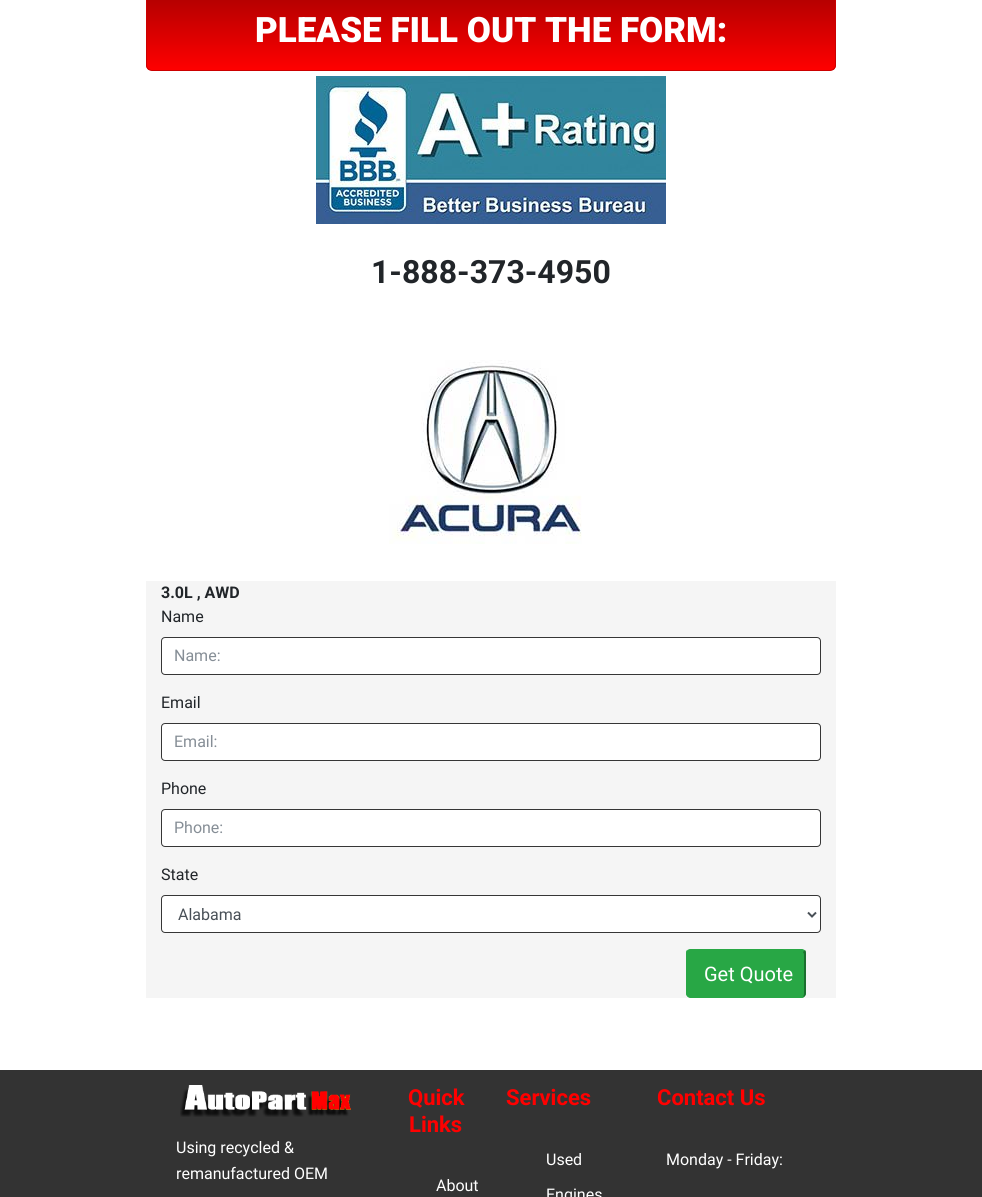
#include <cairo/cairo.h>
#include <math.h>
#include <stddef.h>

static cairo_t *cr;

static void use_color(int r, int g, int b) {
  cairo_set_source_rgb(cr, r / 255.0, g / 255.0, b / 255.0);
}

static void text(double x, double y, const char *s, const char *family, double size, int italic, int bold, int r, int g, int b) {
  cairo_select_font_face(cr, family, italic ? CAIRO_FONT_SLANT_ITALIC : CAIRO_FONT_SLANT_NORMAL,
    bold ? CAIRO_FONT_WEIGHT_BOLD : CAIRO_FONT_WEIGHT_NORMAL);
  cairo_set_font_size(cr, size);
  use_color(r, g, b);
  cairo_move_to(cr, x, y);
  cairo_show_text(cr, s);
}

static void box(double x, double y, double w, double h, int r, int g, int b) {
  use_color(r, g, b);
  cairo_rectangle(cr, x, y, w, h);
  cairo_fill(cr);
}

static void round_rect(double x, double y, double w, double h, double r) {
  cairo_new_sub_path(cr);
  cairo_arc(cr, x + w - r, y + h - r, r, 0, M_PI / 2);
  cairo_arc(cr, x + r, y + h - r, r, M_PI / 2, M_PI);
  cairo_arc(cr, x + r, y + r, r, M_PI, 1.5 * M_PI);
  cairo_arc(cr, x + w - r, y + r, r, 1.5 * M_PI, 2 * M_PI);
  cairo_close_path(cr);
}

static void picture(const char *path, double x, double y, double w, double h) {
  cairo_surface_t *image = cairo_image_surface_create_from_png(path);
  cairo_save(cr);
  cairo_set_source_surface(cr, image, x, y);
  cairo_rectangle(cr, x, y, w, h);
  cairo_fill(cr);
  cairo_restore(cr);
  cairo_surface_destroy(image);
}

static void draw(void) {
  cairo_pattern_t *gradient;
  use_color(255, 255, 255);
  cairo_paint(cr);
  cairo_save(cr);
  round_rect(146, -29, 690, 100, 6);
  cairo_clip(cr);
  gradient = cairo_pattern_create_linear(491, -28, 491, 70);
  cairo_pattern_add_color_stop_rgba(gradient, 0, 0.6, 0, 0, 1);
  cairo_pattern_add_color_stop_rgba(gradient, 1, 1, 0, 0, 1);
  cairo_set_source(cr, gradient);
  cairo_pattern_destroy(gradient);
  cairo_rectangle(cr, 146, 0, 690, 70);
  cairo_fill(cr);
  cairo_restore(cr);
  round_rect(146.5, -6.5, 689, 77, 5.5);
  use_color(204, 0, 0);
  cairo_set_line_width(cr, 1);
  cairo_stroke(cr);
  picture("img_01.png", 316, 76, 350, 148);
  picture("img_02.png", 389, 360, 193, 184);
  box(146, 581, 690, 417, 245, 245, 245);
  use_color(255, 255, 255);
  round_rect(161.5, 637.5, 659, 37, 3.5);
  cairo_fill_preserve(cr);
  use_color(54, 54, 54);
  cairo_stroke(cr);
  use_color(255, 255, 255);
  round_rect(161.5, 723.5, 659, 37, 3.5);
  cairo_fill_preserve(cr);
  use_color(54, 54, 54);
  cairo_stroke(cr);
  use_color(255, 255, 255);
  round_rect(161.5, 809.5, 659, 37, 3.5);
  cairo_fill_preserve(cr);
  use_color(54, 54, 54);
  cairo_stroke(cr);
  use_color(255, 255, 255);
  round_rect(161.5, 895.5, 659, 37, 3.5);
  cairo_fill_preserve(cr);
  use_color(54, 54, 54);
  cairo_stroke(cr);
  cairo_new_path(cr);
  cairo_move_to(cr, 808, 912.5);
  cairo_line_to(cr, 812, 916.5);
  cairo_line_to(cr, 816, 912.5);
  use_color(73, 80, 87);
  cairo_set_line_width(cr, 2);
  cairo_stroke(cr);
  use_color(40, 167, 69);
  round_rect(686, 949, 120, 49, 5);
  cairo_fill(cr);
  cairo_new_path(cr);
  cairo_move_to(cr, 691, 949);
  cairo_curve_to(cr, 690, 949, 688, 950, 687, 950);
  cairo_line_to(cr, 689, 952);
  cairo_line_to(cr, 691, 951);
  cairo_line_to(cr, 801, 951);
  cairo_line_to(cr, 803, 952);
  cairo_line_to(cr, 805, 950);
  cairo_curve_to(cr, 804, 950, 802, 949, 801, 949);
  cairo_close_path(cr);
  cairo_fill(cr);
  use_color(27, 111, 46);
  cairo_new_path(cr);
  cairo_move_to(cr, 806, 993);
  cairo_line_to(cr, 806, 954);
  cairo_curve_to(cr, 806, 952, 806, 951, 805, 950);
  cairo_line_to(cr, 803, 952);
  cairo_line_to(cr, 804, 954);
  cairo_line_to(cr, 804, 993);
  cairo_curve_to(cr, 804, 994, 804, 996, 803, 996);
  cairo_line_to(cr, 804, 997);
  cairo_curve_to(cr, 805, 996, 806, 995, 806, 993);
  cairo_close_path(cr);
  cairo_fill(cr);
  use_color(40, 167, 69);
  cairo_new_path(cr);
  cairo_move_to(cr, 691, 998);
  cairo_line_to(cr, 801, 998);
  cairo_curve_to(cr, 802, 998, 803, 998, 804, 997);
  cairo_line_to(cr, 802, 997);
  cairo_curve_to(cr, 800, 998, 767, 997, 764, 997);
  cairo_line_to(cr, 690, 997);
  cairo_line_to(cr, 689, 996);
  cairo_line_to(cr, 688, 997);
  cairo_close_path(cr);
  cairo_fill(cr);
  cairo_new_path(cr);
  cairo_move_to(cr, 686, 954);
  cairo_line_to(cr, 686, 993);
  cairo_curve_to(cr, 686, 995, 687, 996, 688, 997);
  cairo_line_to(cr, 689, 996);
  cairo_curve_to(cr, 688, 996, 688, 994, 688, 993);
  cairo_line_to(cr, 688, 954);
  cairo_line_to(cr, 689, 952);
  cairo_line_to(cr, 687, 950);
  cairo_curve_to(cr, 686, 951, 686, 952, 686, 954);
  cairo_close_path(cr);
  cairo_fill(cr);
  box(0, 1070, 982, 127, 51, 51, 51);
  picture("img_03.png", 180, 1085, 171, 32);
  text(255, 42, "PLEASE FILL OUT THE FORM:", "Roboto Black", 35, 0, 0, 255, 255, 255);
  text(371, 283, "1-888-373-4950", "Roboto", 32, 0, 1, 33, 37, 41);
  text(161, 598, "3.0L , AWD", "Roboto", 16, 0, 1, 33, 37, 41);
  text(161, 622, "Name", "Roboto", 16, 0, 0, 33, 37, 41);
  text(174, 661, "Name:", "Roboto", 16, 0, 0, 134, 142, 150);
  text(161, 708, "Email", "Roboto", 16, 0, 0, 33, 37, 41);
  text(174, 747, "Email:", "Roboto", 16, 0, 0, 134, 142, 150);
  text(161, 794, "Phone", "Roboto", 16, 0, 0, 33, 37, 41);
  text(174, 833, "Phone:", "Roboto", 16, 0, 0, 134, 142, 150);
  text(161, 880, "State", "Roboto", 16, 0, 0, 33, 37, 41);
  text(178, 920, "Alabama", "Roboto", 16, 0, 0, 73, 80, 87);
  text(704, 981, "Get Quote", "Roboto", 20, 0, 0, 255, 255, 255);
  text(176, 1153, "Using recycled &", "Roboto", 16, 0, 0, 255, 255, 255);
  text(176, 1179, "remanufactured OEM", "Roboto", 16, 0, 0, 255, 255, 255);
  text(408, 1105, "Quick", "Roboto", 22, 0, 1, 255, 0, 0);
  text(409, 1132, "Links", "Roboto", 22, 0, 1, 255, 0, 0);
  text(436, 1191, "About", "Roboto", 16, 0, 0, 255, 255, 255);
  text(506, 1105, "Services", "Roboto", 22, 0, 1, 255, 0, 0);
  text(546, 1165, "Used", "Roboto", 16, 0, 0, 255, 255, 255);
  text(546, 1200, "Engines", "Roboto", 16, 0, 0, 255, 255, 255);
  text(657, 1105, "Contact Us", "Roboto", 22, 0, 1, 255, 0, 0);
  text(666, 1165, "Monday - Friday:", "Roboto", 16, 0, 0, 255, 255, 255);
}

int main(void) {
  cairo_surface_t *surface = cairo_image_surface_create(CAIRO_FORMAT_RGB24, 982, 1197);
  cr = cairo_create(surface);
  cairo_font_options_t *options = cairo_font_options_create();
  cairo_font_options_set_hint_metrics(options, CAIRO_HINT_METRICS_OFF);
  cairo_font_options_set_hint_style(options, CAIRO_HINT_STYLE_NONE);
  cairo_set_font_options(cr, options);
  cairo_set_miter_limit(cr, 4);
  draw();
  cairo_surface_write_to_png(surface, "out.png");
  cairo_font_options_destroy(options);
  cairo_destroy(cr);
  cairo_surface_destroy(surface);
  return 0;
}
